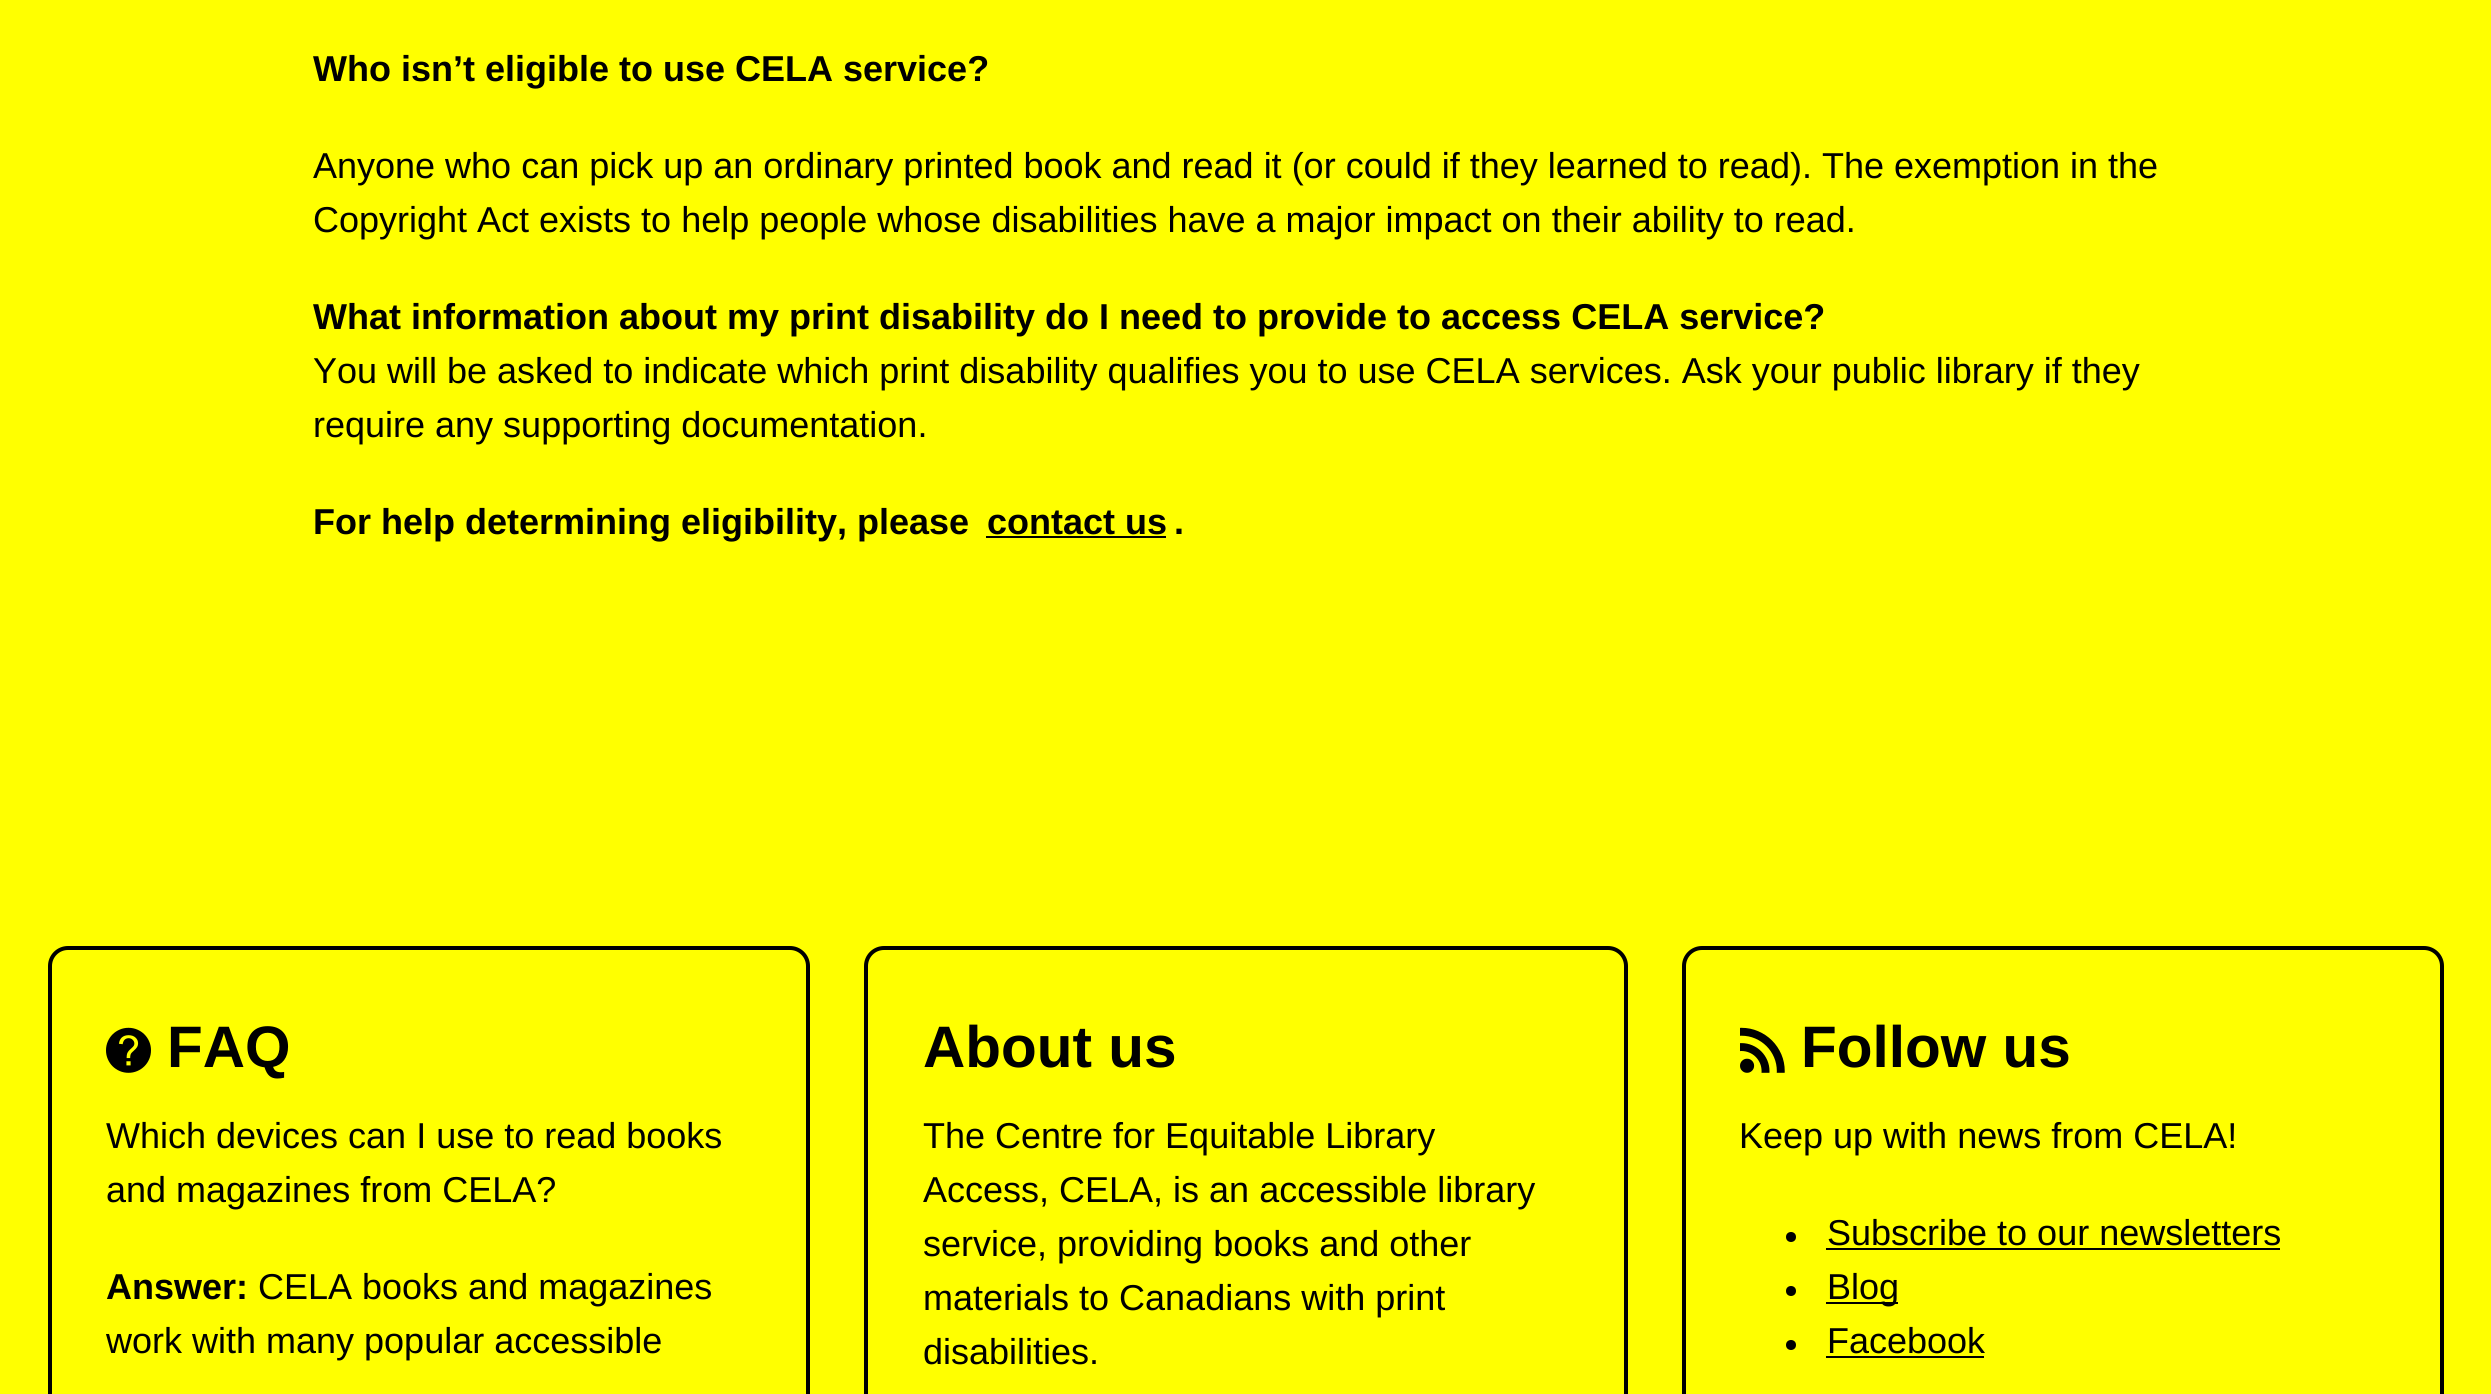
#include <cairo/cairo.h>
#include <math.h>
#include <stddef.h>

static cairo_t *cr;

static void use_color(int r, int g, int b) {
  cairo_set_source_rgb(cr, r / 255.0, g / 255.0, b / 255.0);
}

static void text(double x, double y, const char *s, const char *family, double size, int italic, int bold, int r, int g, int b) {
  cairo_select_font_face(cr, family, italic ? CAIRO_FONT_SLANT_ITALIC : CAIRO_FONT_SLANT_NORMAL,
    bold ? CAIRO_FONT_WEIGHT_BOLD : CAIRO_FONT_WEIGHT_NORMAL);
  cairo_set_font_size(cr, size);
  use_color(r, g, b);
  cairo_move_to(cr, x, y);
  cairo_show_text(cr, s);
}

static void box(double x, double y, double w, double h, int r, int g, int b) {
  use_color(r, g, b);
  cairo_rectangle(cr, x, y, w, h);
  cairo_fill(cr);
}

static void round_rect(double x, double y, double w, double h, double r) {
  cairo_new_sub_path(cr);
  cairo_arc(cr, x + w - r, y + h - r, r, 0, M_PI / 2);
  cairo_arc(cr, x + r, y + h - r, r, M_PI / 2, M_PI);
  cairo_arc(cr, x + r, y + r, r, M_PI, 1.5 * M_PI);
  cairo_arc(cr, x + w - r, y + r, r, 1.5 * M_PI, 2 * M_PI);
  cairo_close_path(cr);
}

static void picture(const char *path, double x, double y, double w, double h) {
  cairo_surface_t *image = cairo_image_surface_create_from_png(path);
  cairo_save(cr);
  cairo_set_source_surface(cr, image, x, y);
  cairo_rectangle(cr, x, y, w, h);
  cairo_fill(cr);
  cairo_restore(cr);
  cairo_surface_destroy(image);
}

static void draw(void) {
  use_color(255, 255, 0);
  cairo_paint(cr);
  box(986, 536, 180, 2, 0, 0, 0);
  round_rect(50, 948, 758, 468, 18);
  cairo_set_line_width(cr, 4);
  cairo_stroke(cr);
  picture("img_01.png", 106, 1027, 45, 46);
  round_rect(866, 948, 760, 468, 18);
  cairo_stroke(cr);
  round_rect(1684, 948, 758, 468, 18);
  cairo_stroke(cr);
  picture("img_02.png", 1740, 1027, 45, 46);
  cairo_arc(cr, 1791, 1237, 5, 0, 2 * M_PI);
  cairo_fill(cr);
  box(1826, 1248, 454, 2, 0, 0, 0);
  cairo_arc(cr, 1791, 1291, 5, 0, 2 * M_PI);
  cairo_fill(cr);
  box(1826, 1302, 72, 2, 0, 0, 0);
  cairo_arc(cr, 1791, 1345, 5, 0, 2 * M_PI);
  cairo_fill(cr);
  box(1826, 1356, 158, 2, 0, 0, 0);
  text(313, 81, "Who isn’t eligible to use CELA service?", "Liberation Sans", 36, 0, 1, 0, 0, 0);
  text(313, 178, "Anyone who can pick up an ordinary printed book and read it (or could if they learned to read). The exemption in the", "Liberation Sans", 36, 0, 0, 0, 0, 0);
  text(313, 232, "Copyright Act exists to help people whose disabilities have a major impact on their ability to read.", "Liberation Sans", 36, 0, 0, 0, 0, 0);
  text(313, 329, "What information about my print disability do I need to provide to access CELA service?", "Liberation Sans", 36, 0, 1, 0, 0, 0);
  text(313, 383, "You will be asked to indicate which print disability qualifies you to use CELA services. Ask your public library if they", "Liberation Sans", 36, 0, 0, 0, 0, 0);
  text(313, 437, "require any supporting documentation.", "Liberation Sans", 36, 0, 0, 0, 0, 0);
  text(313, 534, "For help determining eligibility, please", "Liberation Sans", 36, 0, 1, 0, 0, 0);
  text(987, 534, "contact us", "Liberation Sans", 36, 0, 1, 0, 0, 0);
  text(1174, 534, ".", "Liberation Sans", 36, 0, 1, 0, 0, 0);
  text(167, 1067, "FAQ", "Liberation Sans", 58.5, 0, 1, 0, 0, 0);
  text(106, 1148, "Which devices can I use to read books", "Liberation Sans", 36, 0, 0, 0, 0, 0);
  text(106, 1202, "and magazines from CELA?", "Liberation Sans", 36, 0, 0, 0, 0, 0);
  text(106, 1299, "Answer:", "Liberation Sans", 36, 0, 1, 0, 0, 0);
  text(258, 1299, "CELA books and magazines", "Liberation Sans", 36, 0, 0, 0, 0, 0);
  text(106, 1353, "work with many popular accessible", "Liberation Sans", 36, 0, 0, 0, 0, 0);
  text(923, 1067, "About us", "Liberation Sans", 58.5, 0, 1, 0, 0, 0);
  text(923, 1148, "The Centre for Equitable Library", "Liberation Sans", 36, 0, 0, 0, 0, 0);
  text(923, 1202, "Access, CELA, is an accessible library", "Liberation Sans", 36, 0, 0, 0, 0, 0);
  text(923, 1256, "service, providing books and other", "Liberation Sans", 36, 0, 0, 0, 0, 0);
  text(923, 1310, "materials to Canadians with print", "Liberation Sans", 36, 0, 0, 0, 0, 0);
  text(923, 1364, "disabilities.", "Liberation Sans", 36, 0, 0, 0, 0, 0);
  text(1801, 1067, "Follow us", "Liberation Sans", 58.5, 0, 1, 0, 0, 0);
  text(1739, 1148, "Keep up with news from CELA!", "Liberation Sans", 36, 0, 0, 0, 0, 0);
  text(1827, 1245, "Subscribe to our newsletters", "Liberation Sans", 36, 0, 0, 0, 0, 0);
  text(1827, 1299, "Blog", "Liberation Sans", 36, 0, 0, 0, 0, 0);
  text(1827, 1353, "Facebook", "Liberation Sans", 36, 0, 0, 0, 0, 0);
}

int main(void) {
  cairo_surface_t *surface = cairo_image_surface_create(CAIRO_FORMAT_RGB24, 2491, 1394);
  cr = cairo_create(surface);
  cairo_font_options_t *options = cairo_font_options_create();
  cairo_font_options_set_hint_metrics(options, CAIRO_HINT_METRICS_OFF);
  cairo_font_options_set_hint_style(options, CAIRO_HINT_STYLE_NONE);
  cairo_set_font_options(cr, options);
  cairo_set_miter_limit(cr, 4);
  draw();
  cairo_surface_write_to_png(surface, "out.png");
  cairo_font_options_destroy(options);
  cairo_destroy(cr);
  cairo_surface_destroy(surface);
  return 0;
}
